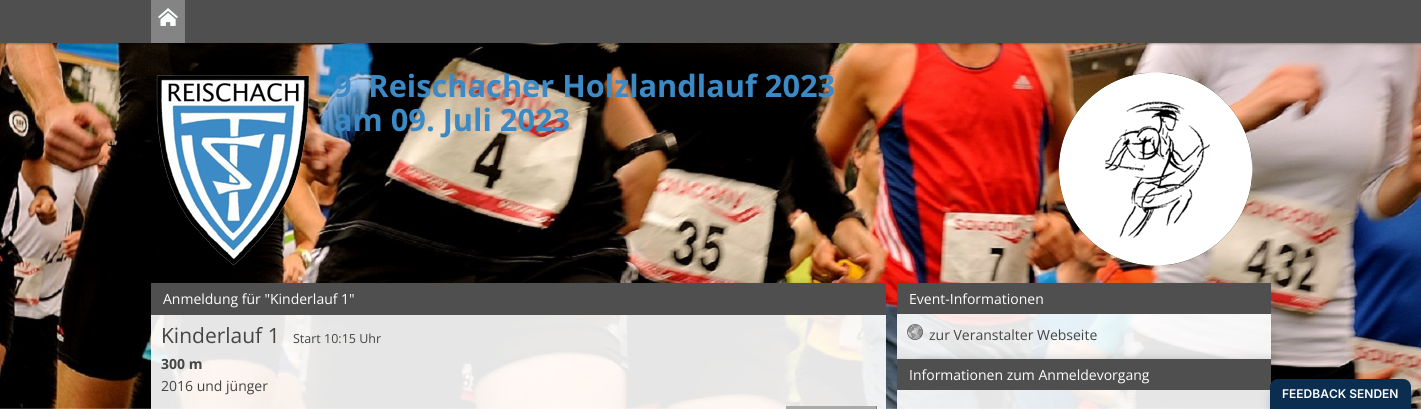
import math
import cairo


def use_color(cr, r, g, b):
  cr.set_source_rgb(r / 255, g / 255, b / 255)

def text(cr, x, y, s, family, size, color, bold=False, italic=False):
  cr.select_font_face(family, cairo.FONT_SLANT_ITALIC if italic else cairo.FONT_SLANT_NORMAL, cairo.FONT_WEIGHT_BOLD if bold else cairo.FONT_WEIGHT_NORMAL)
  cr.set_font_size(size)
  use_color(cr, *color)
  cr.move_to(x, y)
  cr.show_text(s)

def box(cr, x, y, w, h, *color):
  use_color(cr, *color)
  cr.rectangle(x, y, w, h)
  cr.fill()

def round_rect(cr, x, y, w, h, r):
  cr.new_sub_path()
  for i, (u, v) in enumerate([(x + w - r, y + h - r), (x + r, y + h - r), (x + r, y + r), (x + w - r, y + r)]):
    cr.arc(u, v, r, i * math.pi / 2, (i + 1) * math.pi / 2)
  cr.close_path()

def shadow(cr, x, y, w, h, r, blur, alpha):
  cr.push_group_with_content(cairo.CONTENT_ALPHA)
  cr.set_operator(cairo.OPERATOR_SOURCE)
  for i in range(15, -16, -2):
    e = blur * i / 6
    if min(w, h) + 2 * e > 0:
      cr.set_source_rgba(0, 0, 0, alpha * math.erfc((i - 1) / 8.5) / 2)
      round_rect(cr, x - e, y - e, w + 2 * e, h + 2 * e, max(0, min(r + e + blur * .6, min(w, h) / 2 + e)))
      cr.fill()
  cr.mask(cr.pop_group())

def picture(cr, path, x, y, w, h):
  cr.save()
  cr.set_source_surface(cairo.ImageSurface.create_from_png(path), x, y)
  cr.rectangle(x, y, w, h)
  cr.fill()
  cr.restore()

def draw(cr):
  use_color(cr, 255, 255, 255)
  cr.paint()
  picture(cr, "img_01.png", 0, 43, 1421, 366)
  use_color(cr, 0, 0, 0)
  shadow(cr, 0, 1, 1421, 43, 0, 1, 0.3)
  box(cr, 0, 0, 1421, 43, 79, 79, 79)
  box(cr, 151, 0, 34, 43, 132, 132, 132)
  picture(cr, "img_02.png", 158, 8, 20, 18)
  picture(cr, "img_03.png", 156, 75, 154, 190)
  picture(cr, "img_04.png", 1058, 72, 195, 194)
  cr.save()
  cr.set_fill_rule(cairo.FILL_RULE_EVEN_ODD)
  cr.new_path()
  cr.move_to(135, 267)
  cr.line_to(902, 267)
  cr.line_to(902, 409)
  cr.line_to(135, 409)
  cr.close_path()
  cr.move_to(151, 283)
  cr.line_to(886, 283)
  cr.line_to(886, 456)
  cr.line_to(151, 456)
  cr.close_path()
  cr.clip()
  use_color(cr, 10, 10, 10)
  shadow(cr, 151, 283, 735, 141, 0, 5, 0.2)
  cr.restore()
  cr.set_source_rgba(1, 1, 1, 0.9)
  cr.rectangle(151, 315, 735, 94)
  cr.fill()
  box(cr, 151, 283, 735, 32, 79, 79, 79)
  cr.set_source_rgba(1, 1, 1, 0.5)
  cr.rectangle(877, 406, 1, 3)
  cr.fill()
  box(cr, 876, 406, 1, 3, 128, 128, 128)
  box(cr, 786, 406, 90, 3, 170, 170, 170)
  cr.save()
  cr.set_fill_rule(cairo.FILL_RULE_EVEN_ODD)
  cr.new_path()
  cr.move_to(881, 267)
  cr.line_to(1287, 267)
  cr.line_to(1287, 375)
  cr.line_to(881, 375)
  cr.close_path()
  cr.move_to(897, 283)
  cr.line_to(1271, 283)
  cr.line_to(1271, 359)
  cr.line_to(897, 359)
  cr.close_path()
  cr.clip()
  use_color(cr, 10, 10, 10)
  shadow(cr, 897, 283, 374, 76, 0, 5, 0.2)
  cr.restore()
  cr.set_source_rgba(1, 1, 1, 0.9)
  cr.rectangle(897, 314, 374, 45)
  cr.fill()
  box(cr, 897, 283, 374, 31, 79, 79, 79)
  picture(cr, "img_05.png", 907, 324, 16, 16)
  cr.save()
  cr.set_fill_rule(cairo.FILL_RULE_EVEN_ODD)
  cr.new_path()
  cr.move_to(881, 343)
  cr.line_to(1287, 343)
  cr.line_to(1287, 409)
  cr.line_to(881, 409)
  cr.close_path()
  cr.move_to(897, 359)
  cr.line_to(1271, 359)
  cr.line_to(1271, 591)
  cr.line_to(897, 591)
  cr.close_path()
  cr.clip()
  use_color(cr, 10, 10, 10)
  shadow(cr, 897, 359, 374, 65, 0, 5, 0.2)
  cr.restore()
  cr.set_source_rgba(1, 1, 1, 0.9)
  cr.rectangle(897, 390, 373, 19)
  cr.fill()
  box(cr, 897, 359, 374, 31, 79, 79, 79)
  use_color(cr, 0, 57, 128)
  shadow(cr, 1270, 389, 141, 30, 8, 5, 0.2)
  use_color(cr, 10, 45, 80)
  cr.new_path()
  cr.move_to(1278, 379)
  cr.line_to(1403, 379)
  cr.curve_to(1407.5, 379, 1411, 382.5, 1411, 387)
  cr.line_to(1411, 409)
  cr.line_to(1270, 409)
  cr.line_to(1270, 387)
  cr.curve_to(1270, 382.5, 1273.5, 379, 1278, 379)
  cr.close_path()
  cr.fill()
  text(cr, 334, 97, "9. Reischacher Holzlandlauf 2023", "Open Sans", 30.75, (59, 138, 197), bold=True)
  text(cr, 334, 131, "am 09. Juli 2023", "Open Sans", 30.75, (59, 138, 197), bold=True)
  text(cr, 163, 304, "Anmeldung für \"Kinderlauf 1\"", "Open Sans", 14, (255, 255, 255))
  text(cr, 161, 343, "Kinderlauf 1", "Open Sans", 21, (68, 68, 68))
  text(cr, 293, 343, "Start 10:15 Uhr", "Open Sans", 12.5, (68, 68, 68))
  text(cr, 161, 369, "300 m", "Open Sans", 14, (68, 68, 68), bold=True)
  text(cr, 161, 391, "2016 und jünger", "Open Sans", 14, (68, 68, 68))
  text(cr, 909, 304, "Event-Informationen", "Open Sans", 14, (255, 255, 255))
  text(cr, 929, 340, "zur Veranstalter Webseite", "Open Sans", 14, (68, 68, 68))
  text(cr, 909, 380, "Informationen zum Anmeldevorgang", "Open Sans", 14, (255, 255, 255))
  text(cr, 1282, 398, "FEEDBACK SENDEN", "Inter SemiBold", 12, (255, 255, 255))


surface = cairo.ImageSurface(cairo.FORMAT_RGB24, 1421, 409)
cr = cairo.Context(surface)
options = cairo.FontOptions()
options.set_hint_metrics(cairo.HINT_METRICS_OFF)
options.set_hint_style(cairo.HINT_STYLE_NONE)
cr.set_font_options(options)
cr.set_miter_limit(4)
draw(cr)
surface.write_to_png("out.png")
